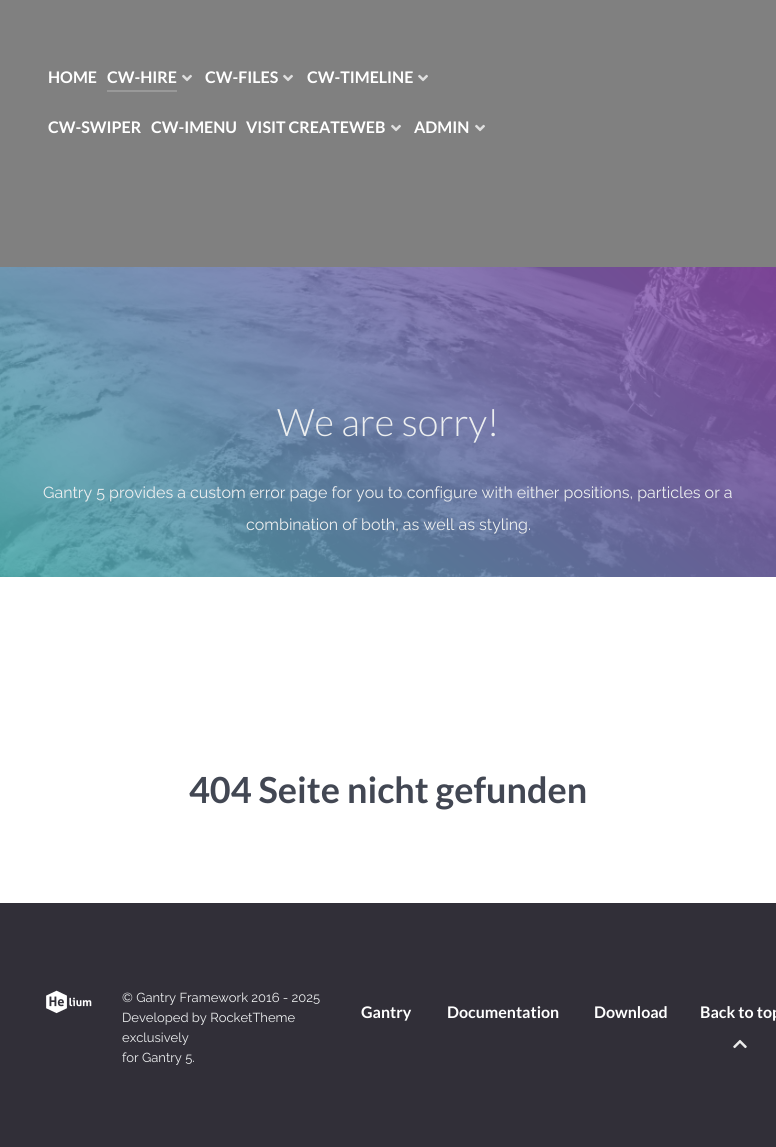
import math
import cairo


def use_color(cr, r, g, b):
  cr.set_source_rgb(r / 255, g / 255, b / 255)

def text(cr, x, y, s, family, size, color, bold=False, italic=False):
  cr.select_font_face(family, cairo.FONT_SLANT_ITALIC if italic else cairo.FONT_SLANT_NORMAL, cairo.FONT_WEIGHT_BOLD if bold else cairo.FONT_WEIGHT_NORMAL)
  cr.set_font_size(size)
  use_color(cr, *color)
  cr.move_to(x, y)
  cr.show_text(s)

def box(cr, x, y, w, h, *color):
  use_color(cr, *color)
  cr.rectangle(x, y, w, h)
  cr.fill()

def picture(cr, path, x, y, w, h):
  cr.save()
  cr.set_source_surface(cairo.ImageSurface.create_from_png(path), x, y)
  cr.rectangle(x, y, w, h)
  cr.fill()
  cr.restore()

def draw(cr):
  use_color(cr, 255, 255, 255)
  cr.paint()
  box(cr, 0, 0, 776, 267, 128, 128, 128)
  box(cr, 107, 90, 70, 2, 153, 153, 153)
  picture(cr, "img_01.png", 182, 74, 10, 8)
  picture(cr, "img_01.png", 283, 74, 10, 8)
  picture(cr, "img_01.png", 418, 74, 10, 8)
  picture(cr, "img_01.png", 391, 124, 10, 8)
  picture(cr, "img_01.png", 475, 124, 10, 8)
  picture(cr, "img_02.png", 0, 267, 776, 310)
  box(cr, 0, 903, 776, 244, 49, 47, 56)
  picture(cr, "img_03.png", 46, 990, 46, 24)
  picture(cr, "img_04.png", 733, 1039, 14, 10)
  text(cr, 48, 83, "HOME", "Lato", 16, (255, 255, 255), bold=True)
  text(cr, 107, 83, "CW-HIRE", "Lato", 16, (255, 255, 255), bold=True)
  text(cr, 205, 83, "CW-FILES", "Lato", 16, (255, 255, 255), bold=True)
  text(cr, 307, 83, "CW-TIMELINE", "Lato", 16, (255, 255, 255), bold=True)
  text(cr, 48, 133, "CW-SWIPER", "Lato", 16, (255, 255, 255), bold=True)
  text(cr, 151, 133, "CW-IMENU", "Lato", 16, (255, 255, 255), bold=True)
  text(cr, 246, 133, "VISIT CREATEWEB", "Lato", 16, (255, 255, 255), bold=True)
  text(cr, 414, 133, "ADMIN", "Lato", 16, (255, 255, 255), bold=True)
  text(cr, 277, 436, "We are sorry!", "Lato Light", 38, (236, 238, 239))
  text(cr, 43, 498, "Gantry 5 provides a custom error page for you to configure with either positions, particles or a", "Raleway", 16, (236, 238, 239))
  text(cr, 246, 530, "combination of both, as well as styling.", "Raleway", 16, (236, 238, 239))
  text(cr, 189, 803, "404 Seite nicht gefunden", "Lato", 36, (66, 71, 83), bold=True)
  text(cr, 122, 1002, "© Gantry Framework 2016 - 2025", "Raleway", 13, (236, 238, 239))
  text(cr, 122, 1022, "Developed by RocketTheme", "Raleway", 13, (236, 238, 239))
  text(cr, 122, 1042, "exclusively", "Raleway", 13, (236, 238, 239))
  text(cr, 122, 1062, "for Gantry 5.", "Raleway", 13, (236, 238, 239))
  text(cr, 361, 1018, "Gantry", "Lato", 16, (255, 255, 255), bold=True)
  text(cr, 447, 1018, "Documentation", "Lato", 16, (255, 255, 255), bold=True)
  text(cr, 594, 1018, "Download", "Lato", 16, (255, 255, 255), bold=True)
  text(cr, 700, 1018, "Back to top", "Lato", 16, (255, 255, 255), bold=True)


surface = cairo.ImageSurface(cairo.FORMAT_RGB24, 776, 1147)
cr = cairo.Context(surface)
options = cairo.FontOptions()
options.set_hint_metrics(cairo.HINT_METRICS_OFF)
options.set_hint_style(cairo.HINT_STYLE_NONE)
cr.set_font_options(options)
cr.set_miter_limit(4)
draw(cr)
surface.write_to_png("out.png")
